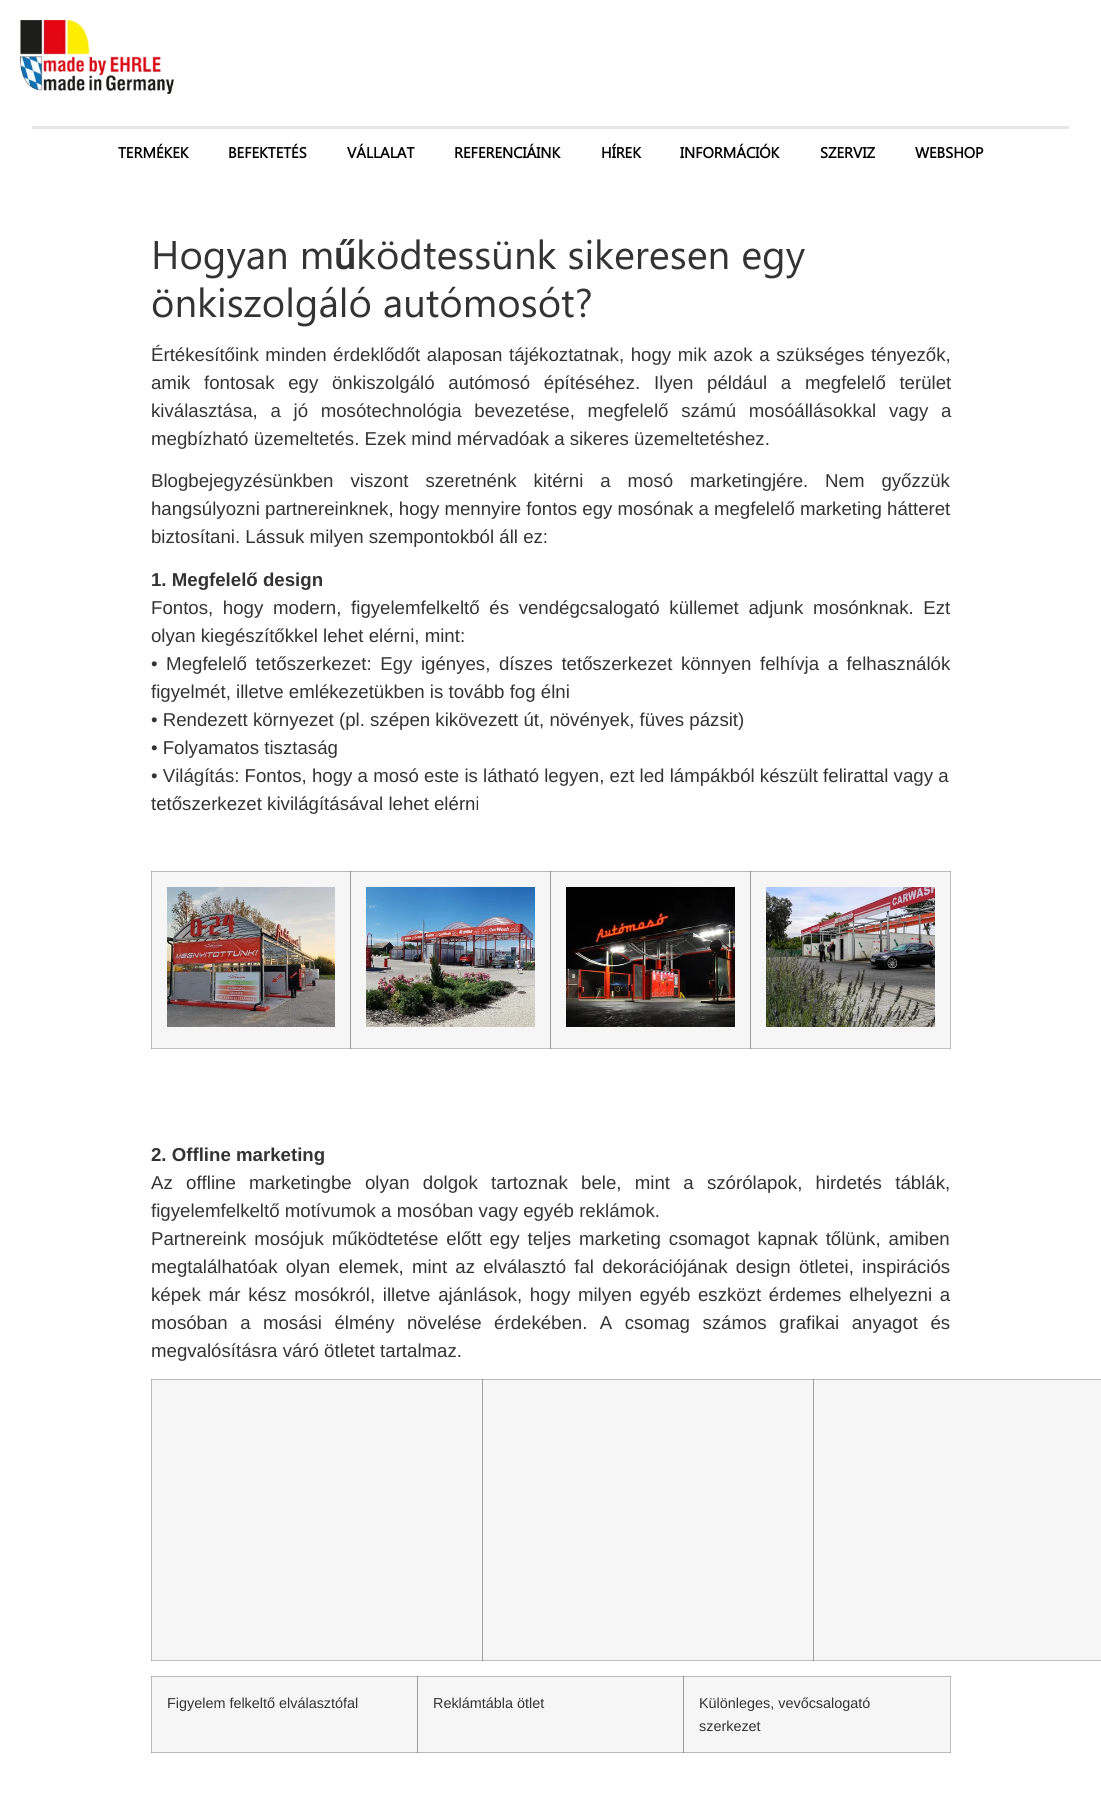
import math
import cairo


def use_color(cr, r, g, b):
  cr.set_source_rgb(r / 255, g / 255, b / 255)

def text(cr, x, y, s, family, size, color, bold=False, italic=False):
  cr.select_font_face(family, cairo.FONT_SLANT_ITALIC if italic else cairo.FONT_SLANT_NORMAL, cairo.FONT_WEIGHT_BOLD if bold else cairo.FONT_WEIGHT_NORMAL)
  cr.set_font_size(size)
  use_color(cr, *color)
  cr.move_to(x, y)
  cr.show_text(s)

def spaced_text(cr, x, y, s, letter, word):
  cr.move_to(x, y)
  for ch in s:
    cr.show_text(ch)
    cr.rel_move_to(letter + word * (ch == ' '), 0)

def box(cr, x, y, w, h, *color):
  use_color(cr, *color)
  cr.rectangle(x, y, w, h)
  cr.fill()

def picture(cr, path, x, y, w, h):
  cr.save()
  cr.set_source_surface(cairo.ImageSurface.create_from_png(path), x, y)
  cr.rectangle(x, y, w, h)
  cr.fill()
  cr.restore()

def draw(cr):
  use_color(cr, 255, 255, 255)
  cr.paint()
  box(cr, 950, 1676, 1, 77, 192, 192, 192)
  box(cr, 950, 1752, 1, 1, 160, 160, 160)
  box(cr, 950, 1676, 1, 1, 160, 160, 160)
  box(cr, 151, 1660, 950, 1, 192, 192, 192)
  box(cr, 151, 1660, 1, 1, 160, 160, 160)
  box(cr, 482, 1660, 1, 1, 136, 136, 136)
  box(cr, 151, 1048, 800, 1, 192, 192, 192)
  box(cr, 151, 1048, 1, 1, 160, 160, 160)
  box(cr, 350, 1048, 1, 1, 136, 136, 136)
  box(cr, 550, 1048, 1, 1, 136, 136, 136)
  box(cr, 750, 1048, 1, 1, 136, 136, 136)
  box(cr, 950, 871, 1, 178, 192, 192, 192)
  box(cr, 950, 1048, 1, 1, 160, 160, 160)
  box(cr, 950, 871, 1, 1, 160, 160, 160)
  picture(cr, "img_01.png", 20, 20, 154, 74)
  box(cr, 32, 126, 1037, 3, 230, 230, 230)
  box(cr, 152, 872, 198, 176, 246, 246, 246)
  box(cr, 151, 871, 1, 177, 187, 187, 187)
  box(cr, 151, 871, 599, 1, 187, 187, 187)
  box(cr, 151, 871, 1, 1, 158, 158, 158)
  box(cr, 350, 871, 1, 177, 158, 158, 158)
  box(cr, 350, 871, 1, 1, 136, 136, 136)
  picture(cr, "img_02.png", 167, 887, 168, 140)
  box(cr, 351, 872, 199, 176, 246, 246, 246)
  box(cr, 550, 871, 1, 177, 158, 158, 158)
  box(cr, 550, 871, 1, 1, 136, 136, 136)
  picture(cr, "img_03.png", 366, 887, 169, 140)
  box(cr, 551, 872, 199, 176, 246, 246, 246)
  picture(cr, "img_04.png", 566, 887, 169, 140)
  box(cr, 751, 872, 199, 176, 246, 246, 246)
  box(cr, 750, 871, 1, 177, 158, 158, 158)
  box(cr, 750, 871, 200, 1, 187, 187, 187)
  box(cr, 750, 871, 1, 1, 136, 136, 136)
  picture(cr, "img_05.png", 766, 887, 169, 140)
  box(cr, 152, 1380, 330, 280, 246, 246, 246)
  box(cr, 151, 1379, 1, 281, 187, 187, 187)
  box(cr, 151, 1379, 331, 1, 187, 187, 187)
  box(cr, 151, 1379, 1, 1, 158, 158, 158)
  box(cr, 483, 1380, 330, 280, 246, 246, 246)
  box(cr, 482, 1379, 1, 281, 158, 158, 158)
  box(cr, 482, 1379, 331, 1, 187, 187, 187)
  box(cr, 482, 1379, 1, 1, 136, 136, 136)
  box(cr, 814, 1380, 287, 280, 246, 246, 246)
  box(cr, 813, 1379, 1, 281, 158, 158, 158)
  box(cr, 813, 1379, 288, 1, 187, 187, 187)
  box(cr, 813, 1379, 1, 1, 136, 136, 136)
  box(cr, 813, 1660, 1, 1, 136, 136, 136)
  box(cr, 152, 1677, 265, 75, 246, 246, 246)
  box(cr, 151, 1676, 1, 77, 187, 187, 187)
  box(cr, 151, 1752, 266, 1, 187, 187, 187)
  box(cr, 151, 1752, 1, 1, 158, 158, 158)
  box(cr, 151, 1676, 266, 1, 187, 187, 187)
  box(cr, 151, 1676, 1, 1, 158, 158, 158)
  box(cr, 418, 1677, 265, 75, 246, 246, 246)
  box(cr, 417, 1676, 1, 77, 158, 158, 158)
  box(cr, 417, 1752, 533, 1, 187, 187, 187)
  box(cr, 417, 1752, 1, 1, 136, 136, 136)
  box(cr, 417, 1676, 533, 1, 187, 187, 187)
  box(cr, 417, 1676, 1, 1, 136, 136, 136)
  box(cr, 683, 1676, 1, 77, 158, 158, 158)
  box(cr, 683, 1752, 1, 1, 136, 136, 136)
  box(cr, 683, 1676, 1, 1, 136, 136, 136)
  box(cr, 684, 1677, 266, 75, 246, 246, 246)
  text(cr, 118, 158, "TERMÉKEK", "Segoe UI", 15, (0, 0, 0), bold=True)
  text(cr, 228, 158, "BEFEKTETÉS", "Segoe UI", 15, (0, 0, 0), bold=True)
  text(cr, 347, 158, "VÁLLALAT", "Segoe UI", 15, (0, 0, 0), bold=True)
  text(cr, 454, 158, "REFERENCIÁINK", "Segoe UI", 15, (0, 0, 0), bold=True)
  text(cr, 601, 158, "HÍREK", "Segoe UI", 15, (0, 0, 0), bold=True)
  text(cr, 680, 158, "INFORMÁCIÓK", "Segoe UI", 15, (0, 0, 0), bold=True)
  text(cr, 820, 158, "SZERVIZ", "Segoe UI", 15, (0, 0, 0), bold=True)
  text(cr, 915, 158, "WEBSHOP", "Segoe UI", 15, (0, 0, 0), bold=True)
  text(cr, 151, 269, "Hogyan m", "Segoe UI", 40, (51, 51, 51))
  text(cr, 334, 269, "ű", "Roboto Medium", 40, (51, 51, 51))
  text(cr, 356, 269, "ködtessünk sikeresen egy", "Segoe UI", 40, (51, 51, 51))
  text(cr, 151, 317, "önkiszolgáló autómosót?", "Segoe UI", 40, (51, 51, 51))
  cr.select_font_face("Liberation Sans")
  cr.set_font_size(18.65)
  spaced_text(cr, 151, 361, "Értékesítőink minden érdeklődőt alaposan tájékoztatnak, hogy mik azok a szükséges tényezők,", 0, 1.4)
  spaced_text(cr, 151, 389, "amik fontosak egy önkiszolgáló autómosó építéséhez. Ilyen például a megfelelő terület", 0, 8.5)
  spaced_text(cr, 151, 417, "kiválasztása, a jó mosótechnológia bevezetése, megfelelő számú mosóállásokkal vagy a", 0, 7.5)
  text(cr, 151, 445, "megbízható üzemeltetés. Ezek mind mérvadóak a sikeres üzemeltetéshez.", "Liberation Sans", 18.65, (51, 51, 51))
  spaced_text(cr, 151, 487, "Blogbejegyzésünkben viszont szeretnénk kitérni a mosó marketingjére. Nem győzzük", 0, 11.75)
  text(cr, 151, 515, "hangsúlyozni partnereinknek, hogy mennyire fontos egy mosónak a megfelelő marketing hátteret", "Liberation Sans", 18.65, (51, 51, 51))
  text(cr, 151, 543, "biztosítani. Lássuk milyen szempontokból áll ez:", "Liberation Sans", 18.65, (51, 51, 51))
  text(cr, 151, 586, "1. Megfelelő design", "Liberation Sans", 18.65, (51, 51, 51), bold=True)
  cr.select_font_face("Liberation Sans")
  spaced_text(cr, 151, 614, "Fontos, hogy modern, figyelemfelkeltő és vendégcsalogató küllemet adjunk mosónknak. Ezt", 0, 4.5)
  text(cr, 151, 642, "olyan kiegészítőkkel lehet elérni, mint:", "Liberation Sans", 18.65, (51, 51, 51))
  spaced_text(cr, 151, 670, "• Megfelelő tetőszerkezet: Egy igényes, díszes tetőszerkezet könnyen felhívja a felhasználók", 0, 3.4)
  text(cr, 151, 698, "figyelmét, illetve emlékezetükben is tovább fog élni", "Liberation Sans", 18.65, (51, 51, 51))
  text(cr, 151, 726, "• Rendezett környezet (pl. szépen kikövezett út, növények, füves pázsit)", "Liberation Sans", 18.65, (51, 51, 51))
  text(cr, 151, 754, "• Folyamatos tisztaság", "Liberation Sans", 18.65, (51, 51, 51))
  text(cr, 151, 782, "• Világítás: Fontos, hogy a mosó este is látható legyen, ezt led lámpákból készült felirattal vagy a", "Liberation Sans", 18.65, (51, 51, 51))
  text(cr, 151, 810, "tetőszerkezet kivilágításával lehet elérni", "Liberation Sans", 18.65, (51, 51, 51))
  text(cr, 151, 1161, "2. Offline marketing", "Liberation Sans", 18.65, (51, 51, 51), bold=True)
  cr.select_font_face("Liberation Sans")
  spaced_text(cr, 151, 1189, "Az offline marketingbe olyan dolgok tartoznak bele, mint a szórólapok, hirdetés táblák,", 0, 8.1)
  text(cr, 151, 1217, "figyelemfelkeltő motívumok a mosóban vagy egyéb reklámok.", "Liberation Sans", 18.65, (51, 51, 51))
  spaced_text(cr, 151, 1245, "Partnereink mosójuk működtetése előtt egy teljes marketing csomagot kapnak tőlünk, amiben", 0, 2.75)
  spaced_text(cr, 151, 1273, "megtalálhatóak olyan elemek, mint az elválasztó fal dekorációjának design ötletei, inspirációs", 0, 3)
  spaced_text(cr, 151, 1301, "képek már kész mosókról, illetve ajánlások, hogy milyen egyéb eszközt érdemes elhelyezni a", 0, 2.5)
  spaced_text(cr, 151, 1329, "mosóban a mosási élmény növelése érdekében. A csomag számos grafikai anyagot és", 0, 7.25)
  text(cr, 151, 1357, "megvalósításra váró ötletet tartalmaz.", "Liberation Sans", 18.65, (51, 51, 51))
  text(cr, 167, 1708, "Figyelem felkeltő elválasztófal", "Liberation Sans", 14.4, (51, 51, 51))
  text(cr, 433, 1708, "Reklámtábla ötlet", "Liberation Sans", 14.4, (51, 51, 51))
  text(cr, 699, 1708, "Különleges, vevőcsalogató", "Liberation Sans", 14.4, (51, 51, 51))
  text(cr, 699, 1731, "szerkezet", "Liberation Sans", 14.4, (51, 51, 51))


surface = cairo.ImageSurface(cairo.FORMAT_RGB24, 1101, 1811)
cr = cairo.Context(surface)
options = cairo.FontOptions()
options.set_hint_metrics(cairo.HINT_METRICS_OFF)
options.set_hint_style(cairo.HINT_STYLE_NONE)
cr.set_font_options(options)
cr.set_miter_limit(4)
draw(cr)
surface.write_to_png("out.png")
